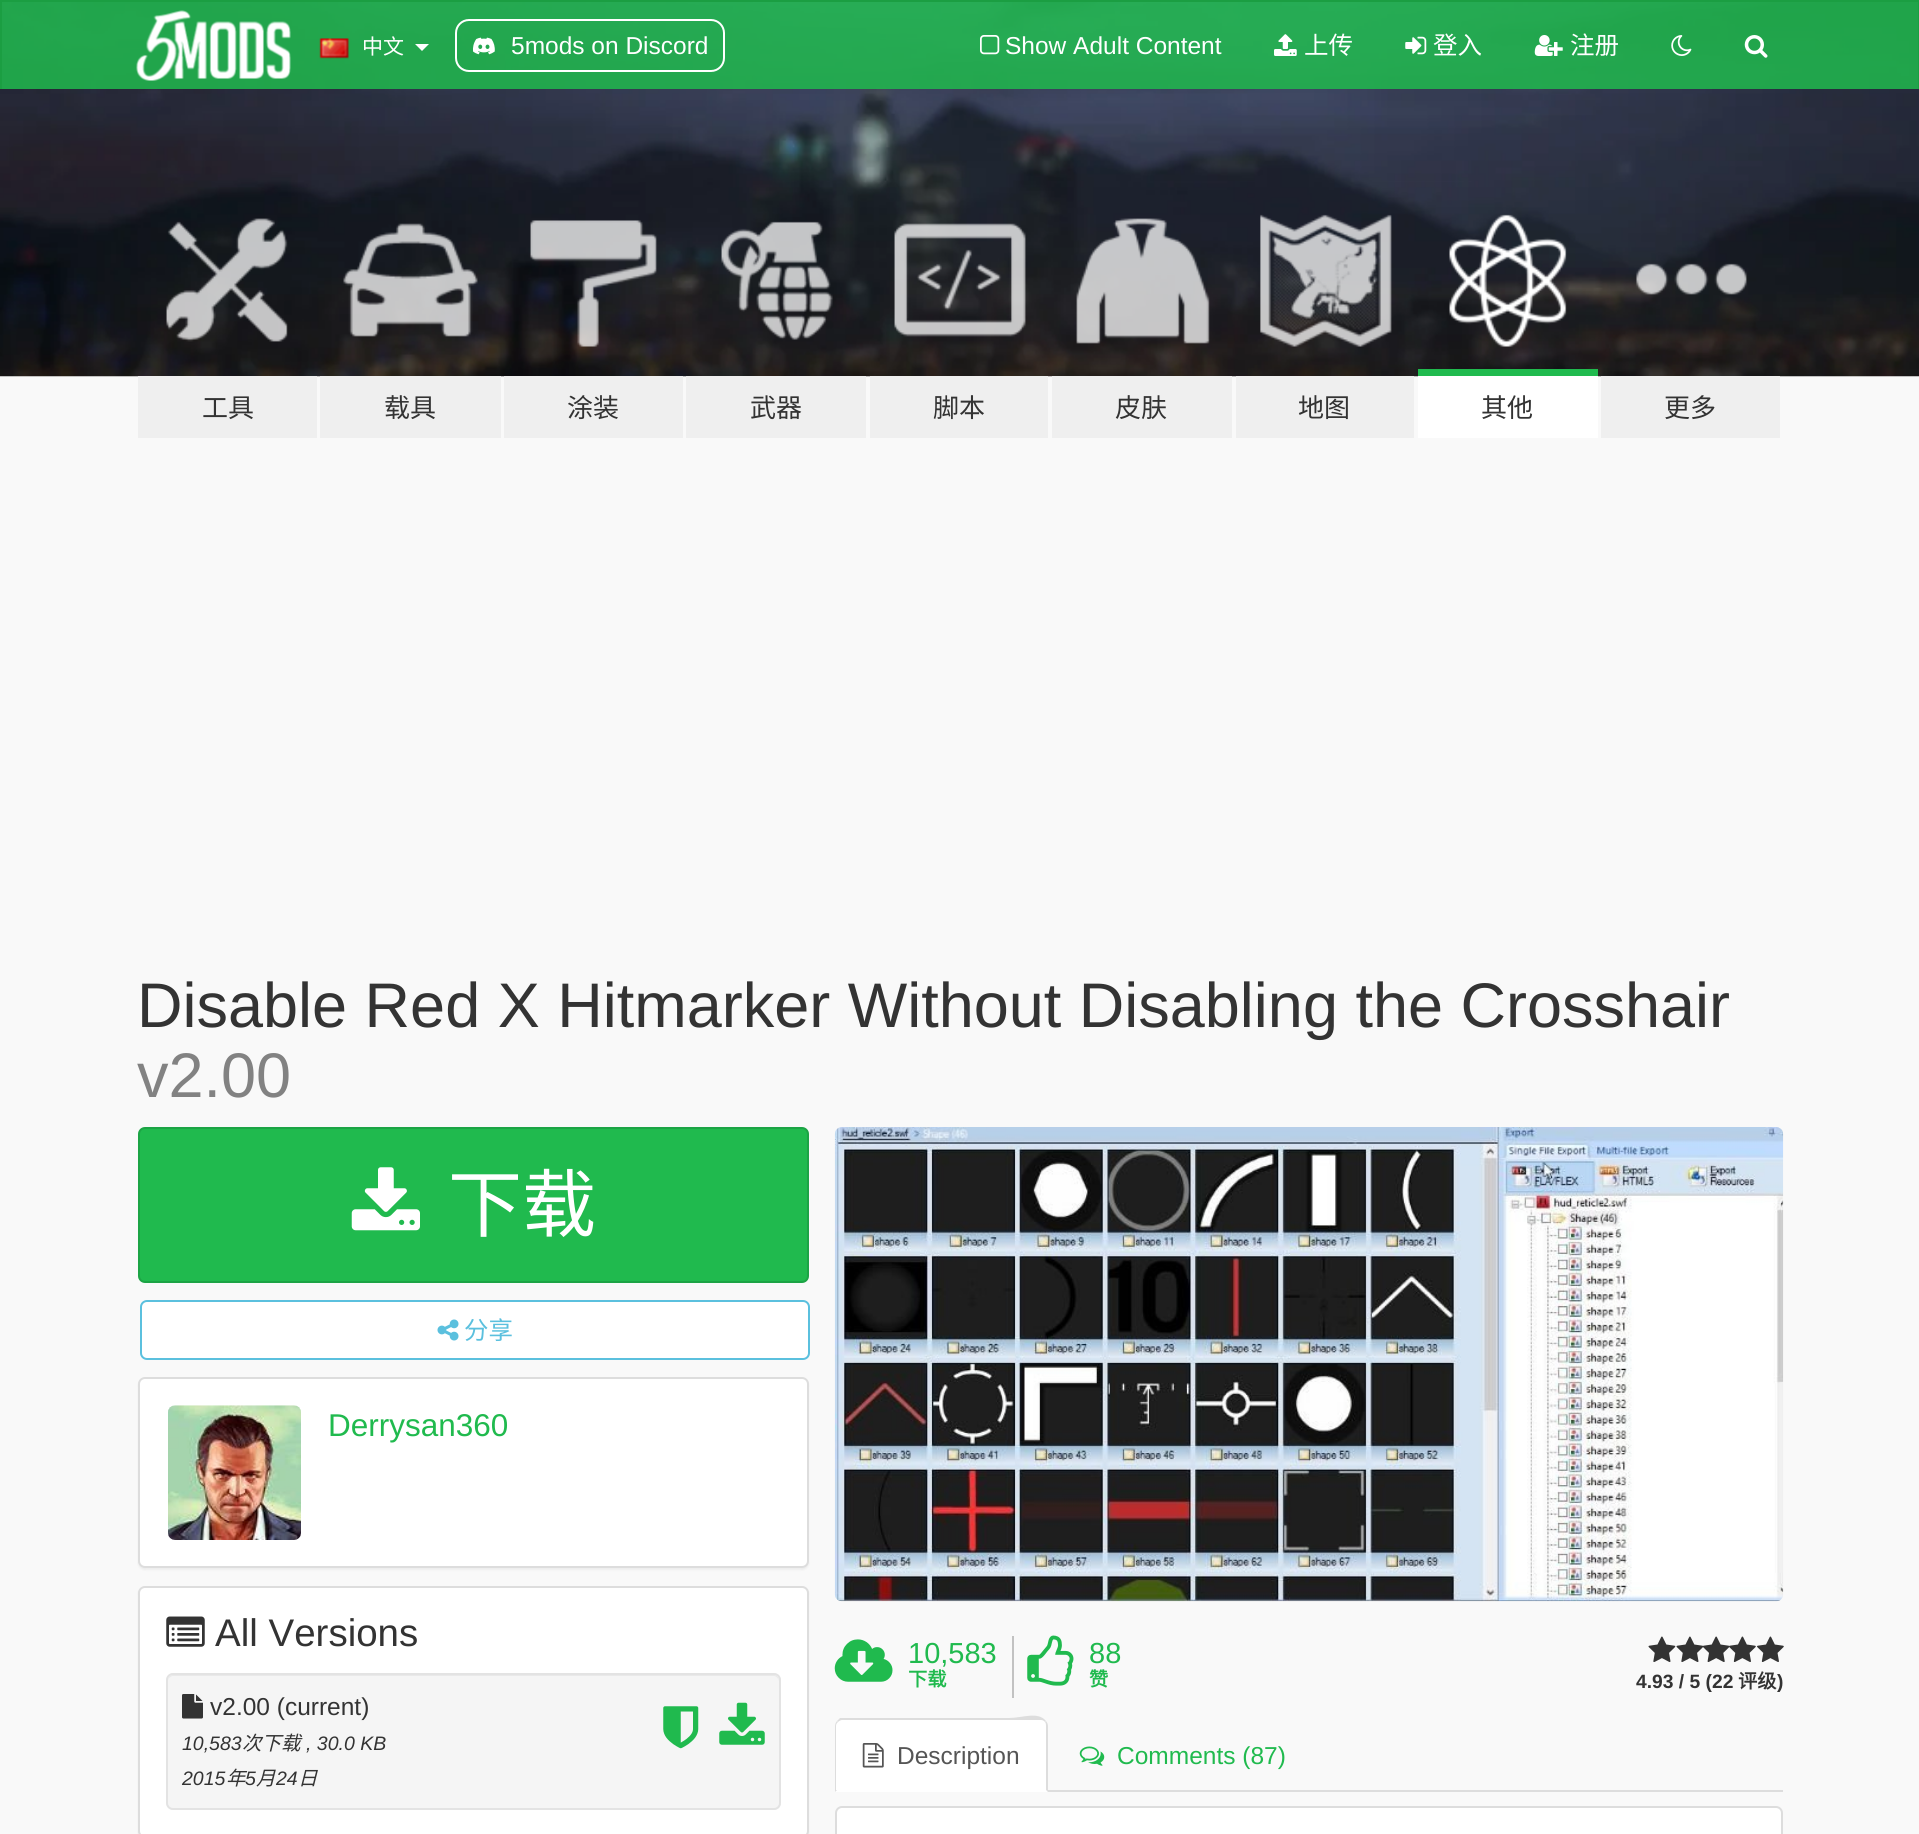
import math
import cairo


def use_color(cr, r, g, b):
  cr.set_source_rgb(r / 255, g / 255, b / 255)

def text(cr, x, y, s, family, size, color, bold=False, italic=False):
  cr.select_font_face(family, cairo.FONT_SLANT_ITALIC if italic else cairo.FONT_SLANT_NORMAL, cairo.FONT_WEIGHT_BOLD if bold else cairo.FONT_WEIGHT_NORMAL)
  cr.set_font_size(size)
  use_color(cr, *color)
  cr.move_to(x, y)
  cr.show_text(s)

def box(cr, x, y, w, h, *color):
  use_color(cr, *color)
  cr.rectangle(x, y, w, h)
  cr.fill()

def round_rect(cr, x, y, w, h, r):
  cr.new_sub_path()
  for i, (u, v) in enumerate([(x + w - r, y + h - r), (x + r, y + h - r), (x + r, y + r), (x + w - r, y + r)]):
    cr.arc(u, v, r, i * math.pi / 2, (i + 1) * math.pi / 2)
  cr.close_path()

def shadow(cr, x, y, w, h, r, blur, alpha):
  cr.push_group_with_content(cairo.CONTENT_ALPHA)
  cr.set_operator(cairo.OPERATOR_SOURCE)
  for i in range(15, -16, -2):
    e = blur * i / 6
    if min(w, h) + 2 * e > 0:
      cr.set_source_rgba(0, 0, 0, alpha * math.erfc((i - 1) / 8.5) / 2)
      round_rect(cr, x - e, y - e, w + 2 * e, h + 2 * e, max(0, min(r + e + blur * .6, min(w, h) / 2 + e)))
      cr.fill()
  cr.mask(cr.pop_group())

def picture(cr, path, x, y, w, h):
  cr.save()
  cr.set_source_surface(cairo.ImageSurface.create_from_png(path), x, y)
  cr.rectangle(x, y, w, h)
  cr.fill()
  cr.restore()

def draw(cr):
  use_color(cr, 249, 249, 249)
  cr.paint()
  picture(cr, "img_10.png", 0, 2, 1919, 375)
  cr.set_source_rgba(0.125, 0.729, 0.306, 0.85)
  cr.rectangle(2, 2, 1916, 87)
  cr.fill()
  box(cr, 0, 0, 1919, 2, 27, 158, 66)
  box(cr, 1918, 0, 1, 89, 27, 158, 66)
  box(cr, 0, 0, 2, 89, 27, 158, 66)
  picture(cr, "img_01.png", 136, 10, 155, 71)
  picture(cr, "img_02.png", 319, 38, 30, 21)
  use_color(cr, 255, 255, 255)
  cr.new_path()
  cr.move_to(415, 44)
  cr.line_to(429, 44)
  cr.line_to(422, 51)
  cr.close_path()
  cr.fill()
  round_rect(cr, 456, 20, 268, 51, 13)
  cr.stroke()
  picture(cr, "img_03.png", 473, 37, 22, 18)
  picture(cr, "img_04.png", 980, 35, 20, 20)
  picture(cr, "img_05.png", 1274, 34, 23, 22)
  picture(cr, "img_06.png", 1405, 36, 22, 19)
  picture(cr, "img_07.png", 1534, 35, 29, 21)
  picture(cr, "img_08.png", 1671, 35, 21, 21)
  picture(cr, "img_09.png", 1744, 35, 24, 23)
  picture(cr, "img_11.png", 166, 218, 122, 124)
  box(cr, 138, 376, 179, 62, 239, 239, 239)
  picture(cr, "img_12.png", 343, 223, 135, 114)
  box(cr, 320, 376, 181, 62, 239, 239, 239)
  picture(cr, "img_13.png", 530, 220, 127, 127)
  box(cr, 504, 376, 179, 62, 239, 239, 239)
  picture(cr, "img_14.png", 721, 221, 112, 119)
  box(cr, 686, 376, 180, 62, 239, 239, 239)
  picture(cr, "img_15.png", 894, 223, 132, 114)
  box(cr, 870, 376, 178, 62, 239, 239, 239)
  picture(cr, "img_16.png", 1076, 218, 134, 126)
  box(cr, 1052, 376, 180, 62, 239, 239, 239)
  picture(cr, "img_17.png", 1260, 214, 132, 133)
  box(cr, 1236, 376, 178, 62, 239, 239, 239)
  picture(cr, "img_18.png", 1449, 214, 118, 133)
  box(cr, 1418, 369, 180, 7, 32, 186, 78)
  box(cr, 1418, 376, 180, 62, 255, 255, 255)
  picture(cr, "img_19.png", 1636, 263, 111, 32)
  box(cr, 1601, 376, 179, 62, 239, 239, 239)
  use_color(cr, 32, 186, 78)
  round_rect(cr, 139, 1128, 669, 154, 6)
  cr.fill_preserve()
  use_color(cr, 28, 164, 69)
  cr.stroke()
  picture(cr, "img_20.png", 351, 1167, 69, 64)
  use_color(cr, 255, 255, 255)
  round_rect(cr, 141, 1301, 668, 58, 6)
  cr.fill_preserve()
  use_color(cr, 91, 192, 222)
  cr.stroke()
  picture(cr, "img_21.png", 437, 1319, 22, 22)
  use_color(cr, 0, 0, 0)
  shadow(cr, 138, 1379, 671, 191, 7, 1, 0.05)
  use_color(cr, 255, 255, 255)
  round_rect(cr, 139, 1378, 669, 189, 6)
  cr.fill_preserve()
  use_color(cr, 221, 221, 221)
  cr.stroke()
  picture(cr, "img_22.png", 168, 1405, 133, 135)
  use_color(cr, 0, 0, 0)
  shadow(cr, 138, 1587, 671, 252, 7, 1, 0.05)
  use_color(cr, 255, 255, 255)
  round_rect(cr, 139, 1587, 669, 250, 6)
  cr.fill_preserve()
  use_color(cr, 221, 221, 221)
  cr.stroke()
  picture(cr, "img_23.png", 166, 1616, 39, 31)
  use_color(cr, 245, 245, 245)
  round_rect(cr, 166, 1673, 615, 137, 7)
  cr.fill()
  use_color(cr, 233, 233, 233)
  cr.new_path()
  cr.move_to(173, 1676)
  cr.line_to(774, 1676)
  cr.curve_to(776, 1676, 779, 1679, 779, 1682)
  cr.curve_to(779, 1679, 778, 1675, 774, 1675)
  cr.line_to(173, 1675)
  cr.curve_to(169, 1675, 168, 1679, 168, 1682)
  cr.curve_to(168, 1679, 170, 1676, 173, 1676)
  cr.close_path()
  cr.fill()
  round_rect(cr, 167, 1674, 613, 135, 6)
  use_color(cr, 227, 227, 227)
  cr.stroke()
  picture(cr, "img_24.png", 182, 1694, 21, 25)
  picture(cr, "img_25.png", 663, 1706, 36, 43)
  picture(cr, "img_26.png", 719, 1702, 46, 43)
  picture(cr, "img_27.png", 834, 1127, 950, 475)
  picture(cr, "img_28.png", 834, 1639, 59, 43)
  box(cr, 1012, 1636, 2, 62, 194, 194, 194)
  picture(cr, "img_29.png", 1027, 1635, 47, 51)
  picture(cr, "img_30.png", 1648, 1636, 28, 26)
  picture(cr, "img_31.png", 1676, 1636, 27, 26)
  picture(cr, "img_32.png", 1703, 1636, 27, 26)
  picture(cr, "img_33.png", 1729, 1636, 27, 26)
  picture(cr, "img_34.png", 1757, 1636, 27, 26)
  box(cr, 1048, 1790, 735, 2, 221, 221, 221)
  use_color(cr, 255, 255, 255)
  cr.new_path()
  cr.move_to(842, 1719)
  cr.line_to(1041, 1719)
  cr.curve_to(1045, 1719, 1048, 1722, 1048, 1726)
  cr.line_to(1048, 1792)
  cr.line_to(835, 1792)
  cr.line_to(835, 1726)
  cr.curve_to(835, 1722, 838, 1719, 842, 1719)
  cr.close_path()
  cr.fill()
  use_color(cr, 221, 221, 221)
  cr.new_path()
  cr.move_to(842, 1720)
  cr.curve_to(841, 1720, 839, 1721, 838, 1722)
  cr.line_to(837, 1721)
  cr.line_to(840, 1718)
  cr.line_to(1009, 1718)
  cr.curve_to(1022, 1718, 1038, 1711, 1046, 1721)
  cr.line_to(1045, 1722)
  cr.curve_to(1044, 1721, 1043, 1720, 1041, 1720)
  cr.close_path()
  cr.fill()
  cr.new_path()
  cr.move_to(1046, 1721)
  cr.curve_to(1047, 1722, 1048, 1724, 1048, 1726)
  cr.line_to(1048, 1792)
  cr.line_to(1046, 1790)
  cr.line_to(1046, 1726)
  cr.curve_to(1046, 1725, 1046, 1723, 1045, 1722)
  cr.close_path()
  cr.fill()
  cr.new_path()
  cr.move_to(835, 1792)
  cr.line_to(835, 1726)
  cr.curve_to(835, 1724, 836, 1722, 837, 1721)
  cr.line_to(838, 1722)
  cr.curve_to(837, 1723, 836, 1724, 836, 1726)
  cr.line_to(836, 1790)
  cr.line_to(837, 1790)
  cr.close_path()
  cr.fill()
  picture(cr, "img_35.png", 862, 1743, 22, 25)
  picture(cr, "img_36.png", 1079, 1746, 26, 20)
  use_color(cr, 255, 255, 255)
  round_rect(cr, 836, 1807, 946, 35, 6)
  cr.fill_preserve()
  use_color(cr, 221, 221, 221)
  cr.stroke()
  text(cr, 362, 54, "中文", "Noto Sans CJK SC", 21, (255, 255, 255))
  text(cr, 511, 54, "5mods on Discord", "Liberation Sans", 24.5, (255, 255, 255))
  text(cr, 1005, 54, "Show Adult Content", "Liberation Sans", 24.5, (255, 255, 255))
  text(cr, 1304, 54, "上传", "Noto Sans CJK SC", 24.5, (255, 255, 255))
  text(cr, 1433, 54, "登入", "Noto Sans CJK SC", 24.5, (255, 255, 255))
  text(cr, 1570, 54, "注册", "Noto Sans CJK SC", 24.5, (255, 255, 255))
  text(cr, 202, 417, "工具", "Noto Sans CJK SC", 26, (51, 51, 51))
  text(cr, 384, 417, "载具", "Noto Sans CJK SC", 26, (51, 51, 51))
  text(cr, 567, 417, "涂装", "Noto Sans CJK SC", 26, (51, 51, 51))
  text(cr, 750, 417, "武器", "Noto Sans CJK SC", 26, (51, 51, 51))
  text(cr, 933, 417, "脚本", "Noto Sans CJK SC", 26, (51, 51, 51))
  text(cr, 1115, 417, "皮肤", "Noto Sans CJK SC", 26, (51, 51, 51))
  text(cr, 1298, 417, "地图", "Noto Sans CJK SC", 26, (51, 51, 51))
  text(cr, 1481, 417, "其他", "Noto Sans CJK SC", 26, (51, 51, 51))
  text(cr, 1664, 417, "更多", "Noto Sans CJK SC", 26, (51, 51, 51))
  text(cr, 137, 1027, "Disable Red X Hitmarker Without Disabling the Crosshair", "Liberation Sans", 63, (51, 51, 51))
  text(cr, 137, 1097, "v2.00", "Liberation Sans", 63, (130, 130, 130))
  text(cr, 448, 1231, "下载", "Noto Sans CJK SC", 74, (255, 255, 255))
  text(cr, 464, 1339, "分享", "Noto Sans CJK SC", 24.5, (91, 192, 222))
  text(cr, 328, 1436, "Derrysan360", "Liberation Sans", 31.5, (32, 186, 78))
  text(cr, 215, 1646, "All Versions", "Liberation Sans", 38.5, (51, 51, 51))
  text(cr, 210, 1715, "v2.00 (current)", "Liberation Sans", 24.5, (51, 51, 51))
  text(cr, 182, 1750, "10,583", "Liberation Sans", 19.5, (51, 51, 51), italic=True)
  text(cr, 242, 1750, "次下载", "Noto Sans CJK SC", 19.5, (51, 51, 51), italic=True)
  text(cr, 306, 1750, ", 30.0 KB", "Liberation Sans", 19.5, (51, 51, 51), italic=True)
  text(cr, 182, 1785, "2015", "Liberation Sans", 19.5, (51, 51, 51), italic=True)
  text(cr, 226, 1785, "年", "Noto Sans CJK SC", 19.5, (51, 51, 51), italic=True)
  text(cr, 245, 1785, "5", "Liberation Sans", 19.5, (51, 51, 51), italic=True)
  text(cr, 256, 1785, "月", "Noto Sans CJK SC", 19.5, (51, 51, 51), italic=True)
  text(cr, 276, 1785, "24", "Liberation Sans", 19.5, (51, 51, 51), italic=True)
  text(cr, 298, 1785, "日", "Noto Sans CJK SC", 19.5, (51, 51, 51), italic=True)
  text(cr, 908, 1663, "10,583", "Liberation Sans", 29, (32, 186, 78))
  text(cr, 908, 1686, "下载", "Noto Sans CJK SC", 19.25, (32, 186, 78), bold=True)
  text(cr, 1089, 1663, "88", "Liberation Sans", 29, (32, 186, 78))
  text(cr, 1089, 1686, "赞", "Noto Sans CJK SC", 19.25, (32, 186, 78), bold=True)
  text(cr, 1636, 1688, "4.93 / 5 (22", "Liberation Sans", 19.25, (51, 51, 51), bold=True)
  text(cr, 1738, 1688, "评级", "Noto Sans CJK SC", 19.25, (51, 51, 51), bold=True)
  text(cr, 1777, 1688, ")", "Liberation Sans", 19.25, (51, 51, 51), bold=True)
  text(cr, 897, 1764, "Description", "Liberation Sans", 24.5, (85, 85, 85))
  text(cr, 1117, 1764, "Comments (87)", "Liberation Sans", 24.5, (32, 186, 78))


surface = cairo.ImageSurface(cairo.FORMAT_RGB24, 1919, 1834)
cr = cairo.Context(surface)
options = cairo.FontOptions()
options.set_hint_metrics(cairo.HINT_METRICS_OFF)
options.set_hint_style(cairo.HINT_STYLE_NONE)
cr.set_font_options(options)
cr.set_miter_limit(4)
draw(cr)
surface.write_to_png("out.png")
